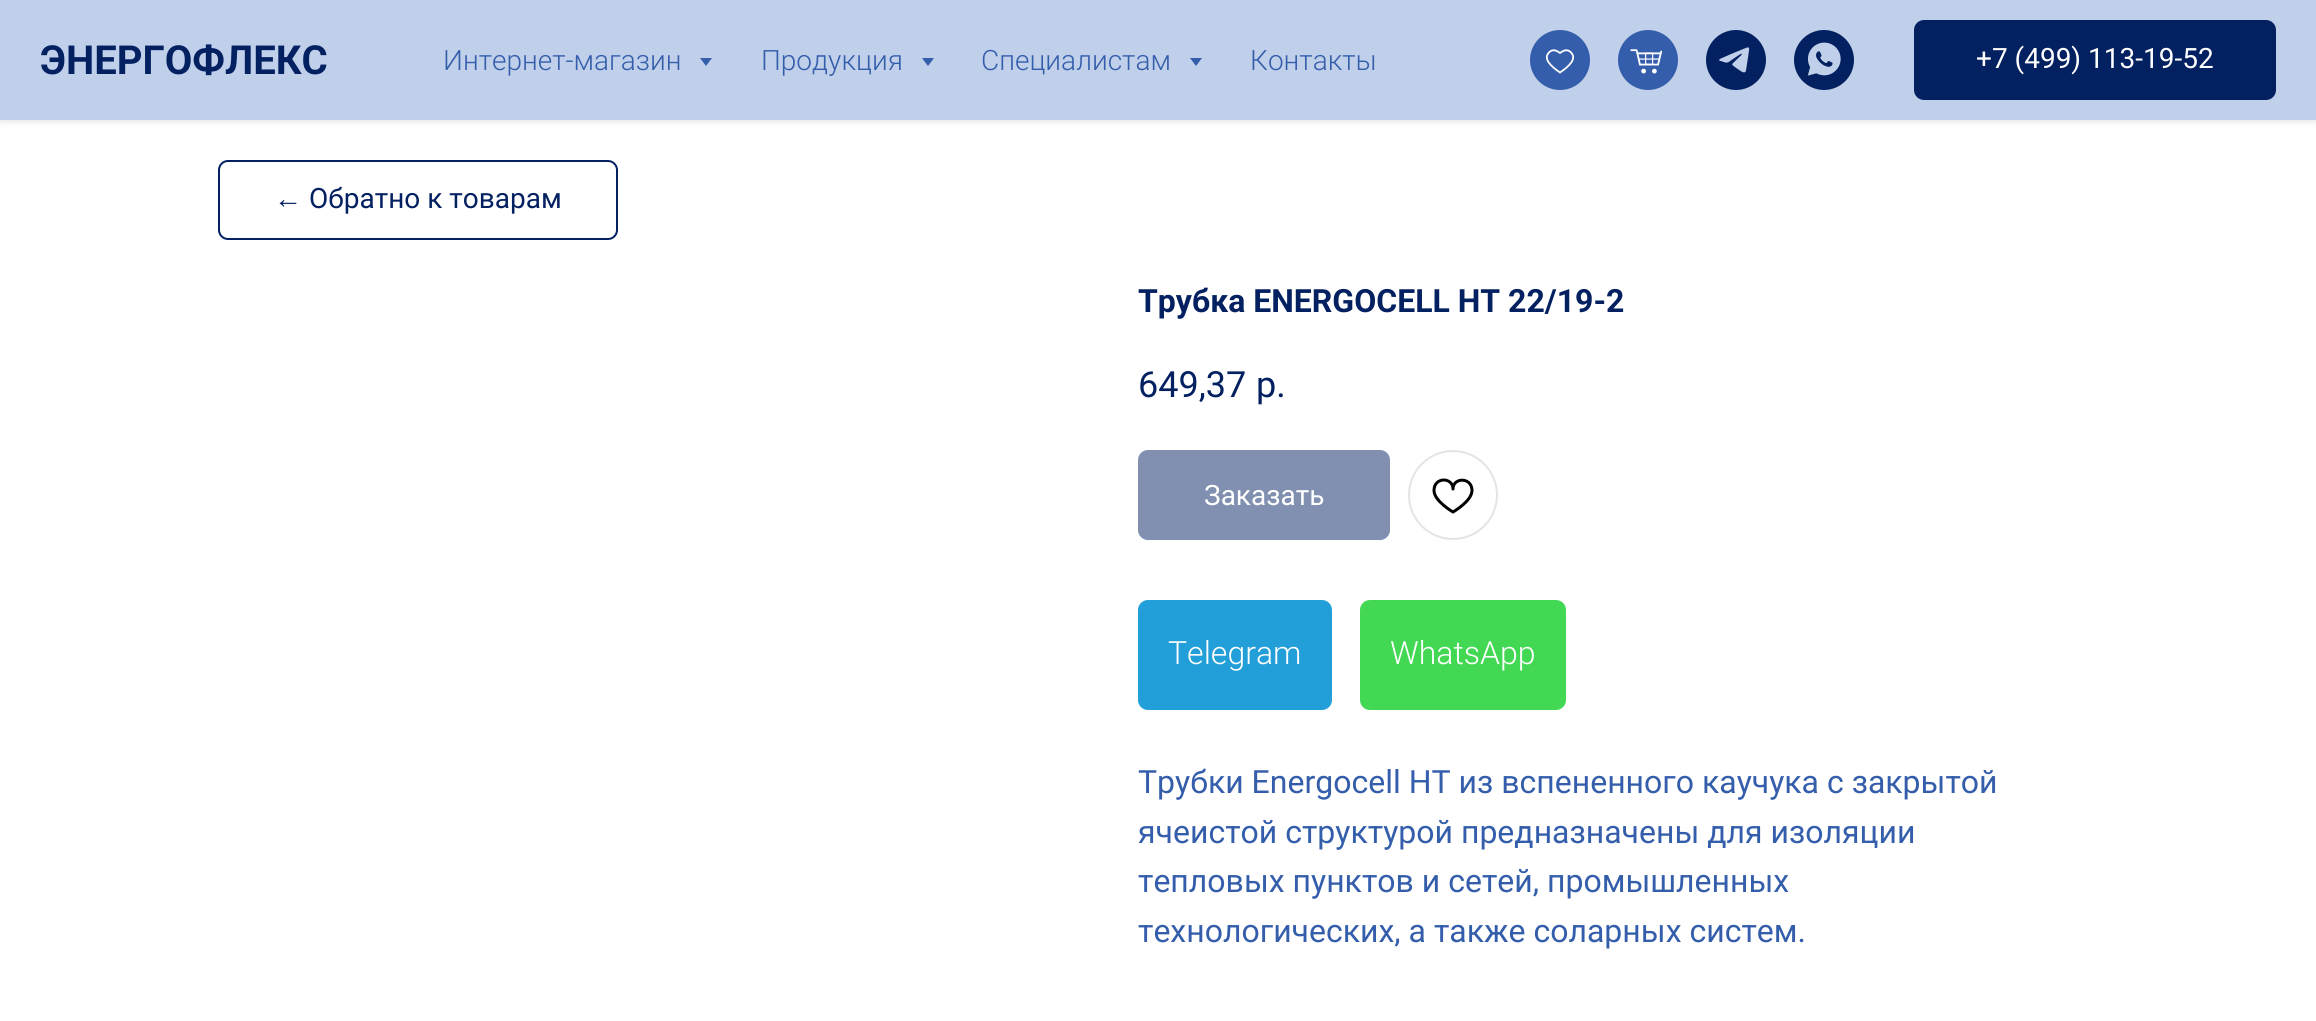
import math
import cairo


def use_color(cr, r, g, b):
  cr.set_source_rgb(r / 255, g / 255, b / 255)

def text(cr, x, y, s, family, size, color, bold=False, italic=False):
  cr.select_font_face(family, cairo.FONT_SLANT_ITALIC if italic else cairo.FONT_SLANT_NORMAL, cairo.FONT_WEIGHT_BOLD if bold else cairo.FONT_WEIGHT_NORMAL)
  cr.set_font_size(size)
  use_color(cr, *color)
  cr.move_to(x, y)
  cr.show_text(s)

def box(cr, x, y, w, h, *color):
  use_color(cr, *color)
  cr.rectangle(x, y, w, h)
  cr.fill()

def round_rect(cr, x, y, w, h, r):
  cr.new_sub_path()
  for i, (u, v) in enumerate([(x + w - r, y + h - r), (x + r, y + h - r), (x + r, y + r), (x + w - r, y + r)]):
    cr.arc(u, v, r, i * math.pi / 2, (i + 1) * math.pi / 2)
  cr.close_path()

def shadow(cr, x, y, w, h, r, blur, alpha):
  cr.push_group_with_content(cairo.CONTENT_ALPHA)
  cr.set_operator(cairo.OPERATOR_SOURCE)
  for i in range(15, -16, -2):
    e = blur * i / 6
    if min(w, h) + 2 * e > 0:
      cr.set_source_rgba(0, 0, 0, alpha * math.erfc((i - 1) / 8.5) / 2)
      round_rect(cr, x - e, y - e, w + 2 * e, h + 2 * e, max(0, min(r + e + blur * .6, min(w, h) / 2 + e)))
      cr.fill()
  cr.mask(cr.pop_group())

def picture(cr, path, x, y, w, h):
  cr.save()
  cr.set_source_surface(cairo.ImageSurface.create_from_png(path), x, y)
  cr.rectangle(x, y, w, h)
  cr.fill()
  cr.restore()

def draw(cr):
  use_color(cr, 255, 255, 255)
  cr.paint()
  use_color(cr, 0, 0, 0)
  shadow(cr, 0, 2, 2316, 120, 0, 3, 0.1)
  box(cr, 0, 0, 2316, 120, 192, 208, 234)
  use_color(cr, 52, 94, 171)
  cr.new_path()
  cr.move_to(700, 58)
  cr.line_to(712, 58)
  cr.line_to(706, 66)
  cr.close_path()
  cr.fill()
  cr.new_path()
  cr.move_to(922, 58)
  cr.line_to(934, 58)
  cr.line_to(928, 66)
  cr.close_path()
  cr.fill()
  cr.new_path()
  cr.move_to(1190, 58)
  cr.line_to(1202, 58)
  cr.line_to(1196, 66)
  cr.close_path()
  cr.fill()
  cr.arc(1560, 60, 30, 0, 2 * math.pi)
  cr.fill()
  cr.new_path()
  cr.move_to(1560, 53)
  cr.curve_to(1557.5, 51, 1552.5, 48, 1548.5, 53)
  cr.curve_to(1543.5, 59, 1550.5, 66, 1560, 72.5)
  cr.move_to(1560, 53)
  cr.curve_to(1562.5, 51, 1567.5, 48, 1571.5, 53)
  cr.curve_to(1576.5, 59, 1569.5, 66, 1560, 72.5)
  use_color(cr, 255, 255, 255)
  cr.set_line_width(1.8)
  cr.set_line_cap(cairo.LINE_CAP_ROUND)
  cr.stroke()
  picture(cr, "img_01.png", 1618, 30, 60, 60)
  picture(cr, "img_02.png", 1706, 30, 60, 60)
  picture(cr, "img_03.png", 1794, 30, 60, 60)
  use_color(cr, 3, 32, 97)
  round_rect(cr, 1915, 21, 360, 78, 9)
  cr.fill_preserve()
  cr.set_line_width(2)
  cr.set_line_cap(cairo.LINE_CAP_BUTT)
  cr.stroke()
  round_rect(cr, 219, 161, 398, 78, 9)
  cr.stroke()
  use_color(cr, 129, 144, 176)
  round_rect(cr, 1139, 451, 250, 88, 9)
  cr.fill_preserve()
  cr.stroke()
  cr.arc(1453, 495, 44, 0, 2 * math.pi)
  use_color(cr, 228, 228, 228)
  cr.stroke()
  cr.new_path()
  cr.move_to(1472, 490.5)
  cr.curve_to(1472, 501, 1453, 512, 1453, 512)
  cr.curve_to(1453, 512, 1434, 501, 1434, 490.5)
  cr.curve_to(1434, 476.5, 1453, 477, 1453, 489)
  cr.curve_to(1453, 477, 1472, 477, 1472, 490.5)
  cr.close_path()
  use_color(cr, 0, 0, 0)
  cr.set_line_width(3)
  cr.set_line_join(cairo.LINE_JOIN_ROUND)
  cr.stroke()
  use_color(cr, 34, 158, 217)
  round_rect(cr, 1138, 600, 194, 110, 10)
  cr.fill()
  use_color(cr, 67, 216, 84)
  round_rect(cr, 1360, 600, 206, 110, 10)
  cr.fill()
  text(cr, 40, 74, "ЭНЕРГОФЛЕКС", "Roboto", 40, (3, 32, 97), bold=True)
  text(cr, 443, 70, "Интернет-магазин", "Roboto Light", 28, (52, 94, 171))
  text(cr, 761, 70, "Продукция", "Roboto Light", 28, (52, 94, 171))
  text(cr, 981, 70, "Специалистам", "Roboto Light", 28, (52, 94, 171))
  text(cr, 1250, 70, "Контакты", "Roboto Light", 28, (52, 94, 171))
  text(cr, 1976, 68, "+7 (499) 113-19-52", "Roboto", 28, (255, 255, 255))
  text(cr, 274, 208, "←", "Liberation Sans", 28, (3, 32, 97))
  text(cr, 309, 208, "Обратно к товарам", "Roboto", 28, (3, 32, 97))
  text(cr, 1138, 312, "Трубка ENERGOCELL HT 22/19-2", "Roboto", 32, (3, 32, 97), bold=True)
  text(cr, 1138, 397, "649,37", "Roboto", 36, (3, 32, 97))
  text(cr, 1256, 397, "р.", "Roboto", 36, (3, 32, 97))
  text(cr, 1204, 505, "Заказать", "Roboto", 28, (255, 255, 255))
  text(cr, 1168, 664, "Telegram", "Roboto Light", 32, (255, 255, 255))
  text(cr, 1390, 664, "WhatsApp", "Roboto Light", 32, (255, 255, 255))
  text(cr, 1138, 793, "Трубки Energocell HT из вспененного каучука с закрытой", "Roboto", 32, (52, 94, 171))
  text(cr, 1138, 843, "ячеистой структурой предназначены для изоляции", "Roboto", 32, (52, 94, 171))
  text(cr, 1138, 892, "тепловых пунктов и сетей, промышленных", "Roboto", 32, (52, 94, 171))
  text(cr, 1138, 942, "технологических, а также соларных систем.", "Roboto", 32, (52, 94, 171))


surface = cairo.ImageSurface(cairo.FORMAT_RGB24, 2316, 1021)
cr = cairo.Context(surface)
options = cairo.FontOptions()
options.set_hint_metrics(cairo.HINT_METRICS_OFF)
options.set_hint_style(cairo.HINT_STYLE_NONE)
cr.set_font_options(options)
cr.set_miter_limit(4)
draw(cr)
surface.write_to_png("out.png")
